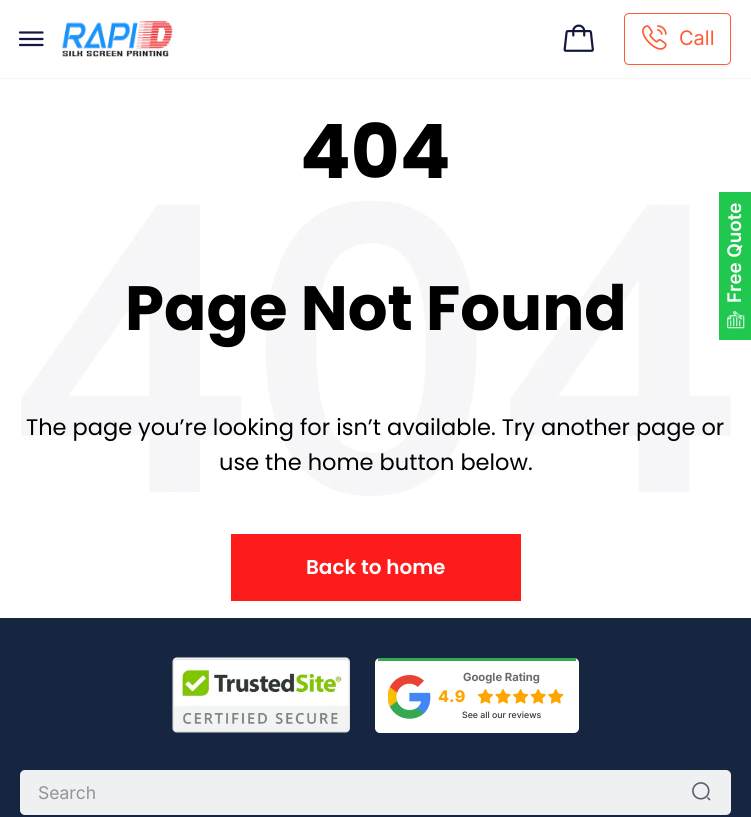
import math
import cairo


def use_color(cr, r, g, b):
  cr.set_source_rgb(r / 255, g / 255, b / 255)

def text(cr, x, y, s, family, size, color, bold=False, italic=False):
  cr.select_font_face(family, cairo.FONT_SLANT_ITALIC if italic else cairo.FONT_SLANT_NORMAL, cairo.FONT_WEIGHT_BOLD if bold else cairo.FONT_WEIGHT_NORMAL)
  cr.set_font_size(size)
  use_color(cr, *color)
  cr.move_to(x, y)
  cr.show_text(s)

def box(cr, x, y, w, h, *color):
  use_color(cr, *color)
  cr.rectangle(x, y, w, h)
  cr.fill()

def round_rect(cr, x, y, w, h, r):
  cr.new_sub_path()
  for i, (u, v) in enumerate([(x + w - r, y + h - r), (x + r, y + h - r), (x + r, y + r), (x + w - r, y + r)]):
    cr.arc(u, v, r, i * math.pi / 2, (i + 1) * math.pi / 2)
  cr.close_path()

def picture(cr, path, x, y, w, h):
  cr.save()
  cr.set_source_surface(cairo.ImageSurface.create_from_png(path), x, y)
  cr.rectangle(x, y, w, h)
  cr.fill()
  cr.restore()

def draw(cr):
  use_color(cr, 255, 255, 255)
  cr.paint()
  box(cr, 0, 78, 751, 1, 244, 245, 247)
  cr.new_path()
  cr.move_to(20, 32.5)
  cr.line_to(42.5, 32.5)
  cr.move_to(20, 39)
  cr.line_to(42.5, 39)
  cr.move_to(20, 45)
  cr.line_to(42.5, 45)
  use_color(cr, 19, 23, 64)
  cr.set_line_width(2.2)
  cr.set_line_cap(cairo.LINE_CAP_ROUND)
  cr.stroke()
  picture(cr, "img_01.png", 62, 21, 111, 36)
  picture(cr, "img_02.png", 563, 24, 31, 28)
  use_color(cr, 250, 250, 250)
  cr.new_path()
  cr.move_to(624, 62)
  cr.curve_to(624, 72, 638, 68, 645, 68)
  cr.line_to(710, 68)
  cr.curve_to(717, 68, 731, 72, 731, 62)
  cr.curve_to(730, 64, 728, 65, 726, 65)
  cr.line_to(629, 65)
  cr.curve_to(627, 65, 625, 64, 624, 62)
  cr.close_path()
  cr.fill()
  round_rect(cr, 624.5, 13.5, 106, 51, 4.5)
  use_color(cr, 255, 92, 53)
  cr.set_line_width(1)
  cr.set_line_cap(cairo.LINE_CAP_BUTT)
  cr.stroke()
  picture(cr, "img_03.png", 642, 25, 25, 25)
  picture(cr, "img_05.png", 21, 201, 710, 295)
  box(cr, 719, 192, 32, 148, 32, 200, 79)
  picture(cr, "img_04.png", 727, 311, 18, 18)
  box(cr, 231, 534, 290, 67, 253, 27, 27)
  box(cr, 0, 618, 751, 199, 23, 38, 64)
  picture(cr, "img_06.png", 172, 657, 178, 76)
  use_color(cr, 255, 255, 255)
  round_rect(cr, 375, 658, 204, 75, 5)
  cr.fill()
  box(cr, 378, 658, 198, 3, 52, 168, 83)
  picture(cr, "img_07.png", 388, 675, 43, 44)
  picture(cr, "img_08.png", 477, 689, 87, 15)
  use_color(cr, 239, 240, 242)
  round_rect(cr, 20, 770, 711, 45, 5)
  cr.fill()
  picture(cr, "img_09.png", 692, 782, 19, 19)
  text(cr, 679, 45, "Call", "Inter", 20, (255, 92, 53))
  cr.save()
  cr.translate(741, 303)
  cr.rotate(-90 * math.pi / 180)
  text(cr, 0, 0, "Free Quote", "Inter SemiBold", 18.75, (255, 255, 255))
  cr.restore()
  text(cr, 300, 178, "404", "Poppins", 75, (0, 0, 0), bold=True)
  text(cr, 125, 330, "Page Not Found", "Poppins", 62.5, (0, 0, 0), bold=True)
  text(cr, 26, 435, "The page you’re looking for isn’t available. Try another page or", "Poppins", 22.5, (0, 0, 0))
  text(cr, 219, 470, "use the home button below.", "Poppins", 22.5, (0, 0, 0))
  text(cr, 306, 574, "Back to home", "Poppins SemiBold", 20, (255, 255, 255))
  text(cr, 463, 681, "Google Rating", "Inter", 11.25, (106, 106, 106), bold=True)
  text(cr, 438, 702, "4.9", "Inter ExtraBold", 16, (254, 165, 0))
  text(cr, 462, 718, "See all our reviews", "Inter Medium", 8.75, (53, 53, 53))
  text(cr, 38, 799, "Search", "Inter", 17.5, (146, 148, 151))


surface = cairo.ImageSurface(cairo.FORMAT_RGB24, 751, 817)
cr = cairo.Context(surface)
options = cairo.FontOptions()
options.set_hint_metrics(cairo.HINT_METRICS_OFF)
options.set_hint_style(cairo.HINT_STYLE_NONE)
cr.set_font_options(options)
cr.set_miter_limit(4)
draw(cr)
surface.write_to_png("out.png")
